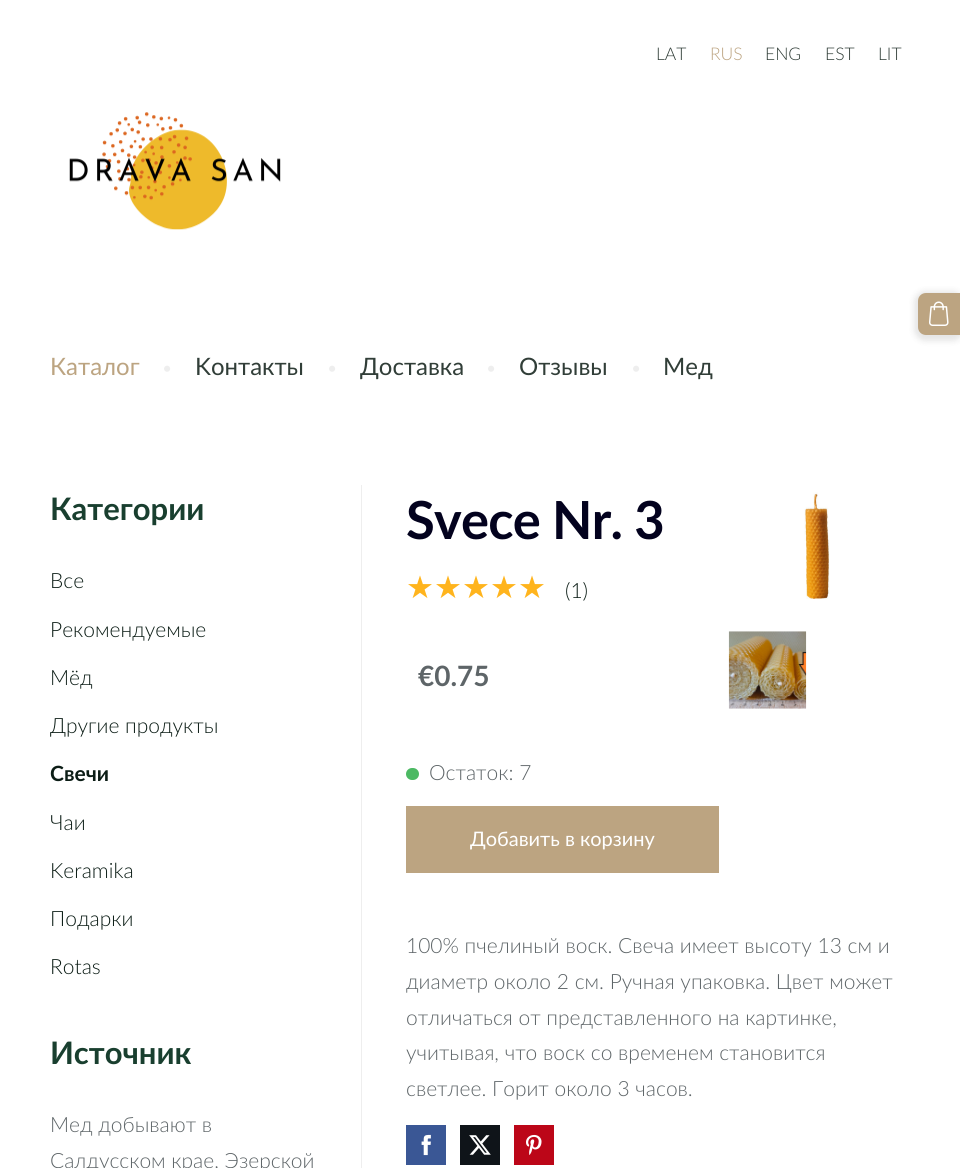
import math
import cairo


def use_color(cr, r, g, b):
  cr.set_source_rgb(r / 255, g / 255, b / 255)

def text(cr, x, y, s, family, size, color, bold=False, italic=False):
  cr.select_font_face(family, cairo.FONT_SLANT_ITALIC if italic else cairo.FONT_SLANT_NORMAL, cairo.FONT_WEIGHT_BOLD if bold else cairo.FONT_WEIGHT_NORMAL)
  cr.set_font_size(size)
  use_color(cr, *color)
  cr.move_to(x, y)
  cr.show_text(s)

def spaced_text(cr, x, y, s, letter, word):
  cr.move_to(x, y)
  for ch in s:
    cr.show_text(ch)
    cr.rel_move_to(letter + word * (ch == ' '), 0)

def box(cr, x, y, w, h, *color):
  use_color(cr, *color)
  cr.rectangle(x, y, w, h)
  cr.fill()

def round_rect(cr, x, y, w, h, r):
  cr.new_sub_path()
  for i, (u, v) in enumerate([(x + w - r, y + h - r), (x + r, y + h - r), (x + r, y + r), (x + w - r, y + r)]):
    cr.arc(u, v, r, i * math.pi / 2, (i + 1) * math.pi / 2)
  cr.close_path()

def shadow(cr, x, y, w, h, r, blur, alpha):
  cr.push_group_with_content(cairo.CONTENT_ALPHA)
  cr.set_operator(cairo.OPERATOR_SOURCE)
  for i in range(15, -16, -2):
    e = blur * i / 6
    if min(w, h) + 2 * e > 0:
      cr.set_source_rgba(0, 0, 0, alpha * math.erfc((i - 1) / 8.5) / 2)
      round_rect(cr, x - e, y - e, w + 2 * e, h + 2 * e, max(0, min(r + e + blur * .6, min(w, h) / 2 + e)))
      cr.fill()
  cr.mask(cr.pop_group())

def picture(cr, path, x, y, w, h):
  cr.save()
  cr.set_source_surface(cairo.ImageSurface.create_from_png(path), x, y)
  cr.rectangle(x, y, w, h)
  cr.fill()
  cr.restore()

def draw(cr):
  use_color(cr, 255, 255, 255)
  cr.paint()
  picture(cr, "img_01.png", 69, 112, 212, 118)
  use_color(cr, 0, 0, 0)
  shadow(cr, 914, 291, 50, 50, 11, 3, 0.1)
  use_color(cr, 188, 164, 129)
  cr.new_path()
  cr.move_to(926, 293)
  cr.line_to(960, 293)
  cr.line_to(960, 335)
  cr.line_to(926, 335)
  cr.curve_to(921.5, 335, 918, 331.5, 918, 327)
  cr.line_to(918, 301)
  cr.curve_to(918, 296.5, 921.5, 293, 926, 293)
  cr.close_path()
  cr.fill()
  picture(cr, "img_02.png", 929, 301, 20, 25)
  box(cr, 361, 485, 1, 683, 238, 238, 238)
  picture(cr, "img_03.png", 804, 492, 26, 107)
  picture(cr, "img_04.png", 728, 631, 79, 78)
  use_color(cr, 76, 185, 99)
  round_rect(cr, 406, 768, 13, 12, 6)
  cr.fill()
  box(cr, 406, 806, 313, 67, 188, 164, 129)
  box(cr, 406, 1125, 40, 40, 58, 87, 149)
  picture(cr, "img_05.png", 421, 1134, 10, 22)
  box(cr, 460, 1125, 40, 40, 15, 20, 25)
  picture(cr, "img_06.png", 469, 1135, 22, 20)
  box(cr, 514, 1125, 40, 40, 188, 6, 24)
  picture(cr, "img_07.png", 526, 1134, 16, 21)
  text(cr, 656, 60, "LAT", "Lato Light", 17.5, (49, 62, 56))
  text(cr, 710, 60, "RUS", "Lato Light", 17.5, (188, 164, 129))
  text(cr, 765, 60, "ENG", "Lato Light", 17.5, (49, 62, 56))
  text(cr, 825, 60, "EST", "Lato Light", 17.5, (49, 62, 56))
  text(cr, 878, 60, "LIT", "Lato Light", 17.5, (49, 62, 56))
  text(cr, 50, 375, "Каталог", "Lato", 24, (188, 164, 129))
  text(cr, 161, 375, "•", "Lato Light", 21, (238, 238, 238))
  text(cr, 195, 375, "Kонтакты", "Lato", 24, (49, 62, 56))
  text(cr, 326, 375, "•", "Lato Light", 21, (238, 238, 238))
  text(cr, 360, 375, "Доставка", "Lato", 24, (49, 62, 56))
  text(cr, 485, 375, "•", "Lato Light", 21, (238, 238, 238))
  text(cr, 519, 375, "Отзывы", "Lato", 24, (49, 62, 56))
  text(cr, 630, 375, "•", "Lato Light", 21, (238, 238, 238))
  text(cr, 663, 375, "Мед", "Lato", 24, (49, 62, 56))
  text(cr, 50, 520, "Категории", "Lato", 31, (25, 63, 47), bold=True)
  text(cr, 50, 588, "Все", "Lato Light", 21, (12, 29, 22))
  text(cr, 50, 637, "Рекомендуемые", "Lato Light", 21, (12, 29, 22))
  text(cr, 50, 685, "Мёд", "Lato Light", 21, (12, 29, 22))
  text(cr, 50, 733, "Другие продукты", "Lato Light", 21, (12, 29, 22))
  text(cr, 50, 781, "Свечи", "Lato", 21, (12, 29, 22), bold=True)
  text(cr, 50, 830, "Чаи", "Lato Light", 21, (12, 29, 22))
  text(cr, 50, 878, "Keramika", "Lato Light", 21, (12, 29, 22))
  text(cr, 50, 926, "Подарки", "Lato Light", 21, (12, 29, 22))
  text(cr, 50, 974, "Rotas", "Lato Light", 21, (12, 29, 22))
  text(cr, 50, 1064, "Источник", "Lato", 31, (25, 63, 47), bold=True)
  text(cr, 50, 1132, "Мед добывают в", "Lato Light", 21, (94, 101, 104))
  text(cr, 50, 1168, "Салдусском крае, Эзерской", "Lato Light", 21, (94, 101, 104))
  cr.select_font_face("Lato", cairo.FONT_SLANT_NORMAL, cairo.FONT_WEIGHT_BOLD)
  cr.set_font_size(52.5)
  use_color(cr, 3, 2, 30)
  spaced_text(cr, 406, 539, "Svece Nr. 3", -0.75, 0)
  text(cr, 406, 598, "★★★★★", "DejaVu Sans", 31.25, (255, 180, 29))
  text(cr, 565, 598, "(1)", "Lato Light", 21, (12, 29, 22))
  text(cr, 418, 686, "€0.75", "Lato", 28, (94, 101, 104), bold=True)
  text(cr, 429, 780, "Остаток: 7", "Lato Light", 21, (94, 101, 104))
  text(cr, 470, 846, "Добавить в корзину", "Lato", 20, (255, 255, 255))
  text(cr, 406, 953, "100% пчелиный воск. Свеча имеет высоту 13 см и", "Lato Light", 21, (94, 101, 104))
  text(cr, 406, 989, "диаметр около 2 см. Ручная упаковка. Цвет может", "Lato Light", 21, (94, 101, 104))
  text(cr, 406, 1025, "отличаться от представленного на картинке,", "Lato Light", 21, (94, 101, 104))
  text(cr, 406, 1060, "учитывая, что воск со временем становится", "Lato Light", 21, (94, 101, 104))
  text(cr, 406, 1096, "светлее. Горит около 3 часов.", "Lato Light", 21, (94, 101, 104))


surface = cairo.ImageSurface(cairo.FORMAT_RGB24, 960, 1168)
cr = cairo.Context(surface)
options = cairo.FontOptions()
options.set_hint_metrics(cairo.HINT_METRICS_OFF)
options.set_hint_style(cairo.HINT_STYLE_NONE)
cr.set_font_options(options)
cr.set_miter_limit(4)
draw(cr)
surface.write_to_png("out.png")
